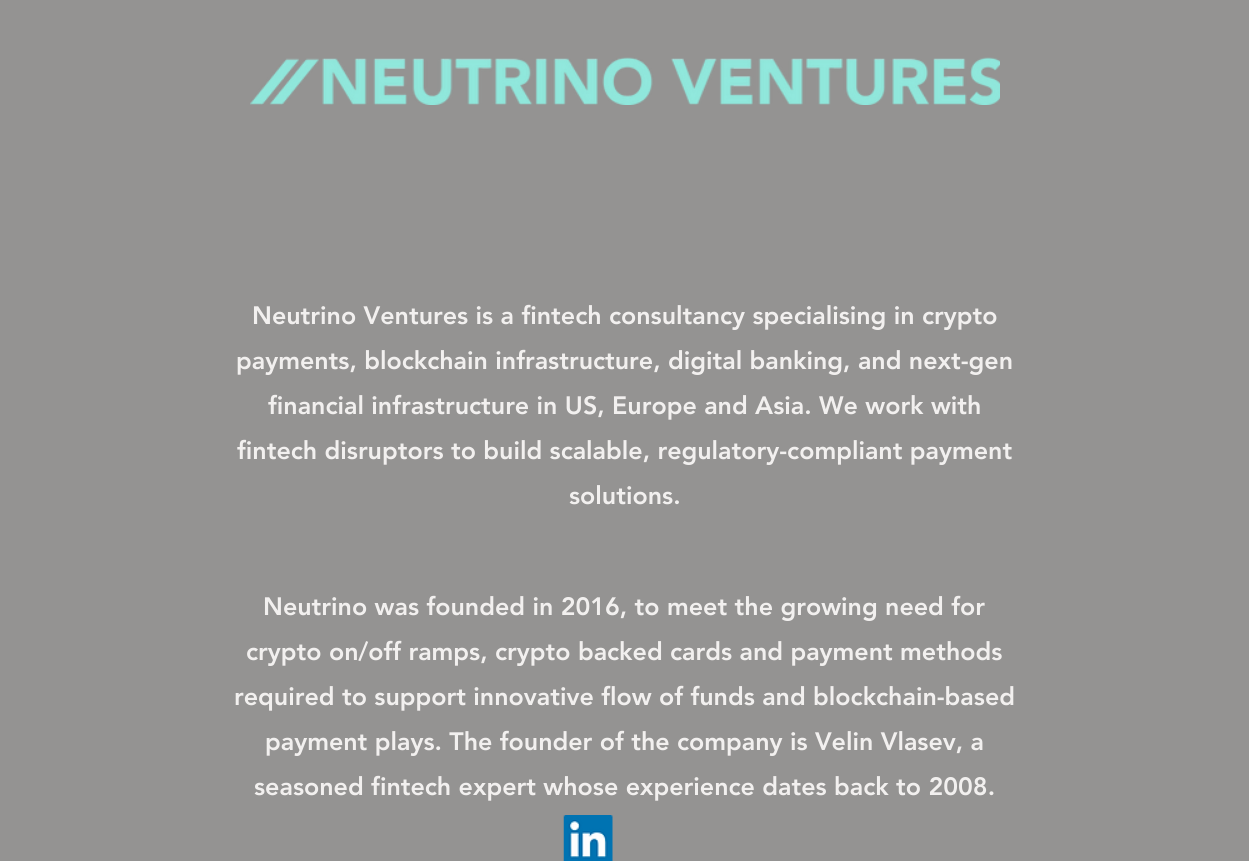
import math
import cairo


def use_color(cr, r, g, b):
  cr.set_source_rgb(r / 255, g / 255, b / 255)

def text(cr, x, y, s, family, size, color, bold=False, italic=False):
  cr.select_font_face(family, cairo.FONT_SLANT_ITALIC if italic else cairo.FONT_SLANT_NORMAL, cairo.FONT_WEIGHT_BOLD if bold else cairo.FONT_WEIGHT_NORMAL)
  cr.set_font_size(size)
  use_color(cr, *color)
  cr.move_to(x, y)
  cr.show_text(s)

def picture(cr, path, x, y, w, h):
  cr.save()
  cr.set_source_surface(cairo.ImageSurface.create_from_png(path), x, y)
  cr.rectangle(x, y, w, h)
  cr.fill()
  cr.restore()

def draw(cr):
  use_color(cr, 148, 147, 146)
  cr.paint()
  picture(cr, "img_01.png", 250, 57, 750, 48)
  picture(cr, "img_02.png", 563, 815, 50, 46)
  text(cr, 252, 324, "Neutrino Ventures is a fintech consultancy specialising in crypto", "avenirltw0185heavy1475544 Black", 25, (242, 240, 239))
  text(cr, 236, 369, "payments, blockchain infrastructure, digital banking, and next-gen", "avenirltw0185heavy1475544 Black", 25, (242, 240, 239))
  text(cr, 268, 414, "financial infrastructure in US, Europe and Asia. We work with", "avenirltw0185heavy1475544 Black", 25, (242, 240, 239))
  text(cr, 237, 459, "fintech disruptors to build scalable, regulatory-compliant payment", "avenirltw0185heavy1475544 Black", 25, (242, 240, 239))
  text(cr, 569, 504, "solutions.", "avenirltw0185heavy1475544 Black", 25, (242, 240, 239))
  text(cr, 263, 615, "Neutrino was founded in 2016, to meet the growing need for", "avenirltw0185heavy1475544 Black", 25, (242, 240, 239))
  text(cr, 246, 660, "crypto on/off ramps, crypto backed cards and payment methods", "avenirltw0185heavy1475544 Black", 25, (242, 240, 239))
  text(cr, 234, 705, "required to support innovative flow of funds and blockchain-based", "avenirltw0185heavy1475544 Black", 25, (242, 240, 239))
  text(cr, 265, 750, "payment plays. The founder of the company is Velin Vlasev, a", "avenirltw0185heavy1475544 Black", 25, (242, 240, 239))
  text(cr, 254, 795, "seasoned fintech expert whose experience dates back to 2008.", "avenirltw0185heavy1475544 Black", 25, (242, 240, 239))


surface = cairo.ImageSurface(cairo.FORMAT_RGB24, 1249, 861)
cr = cairo.Context(surface)
options = cairo.FontOptions()
options.set_hint_metrics(cairo.HINT_METRICS_OFF)
options.set_hint_style(cairo.HINT_STYLE_NONE)
cr.set_font_options(options)
cr.set_miter_limit(4)
draw(cr)
surface.write_to_png("out.png")
